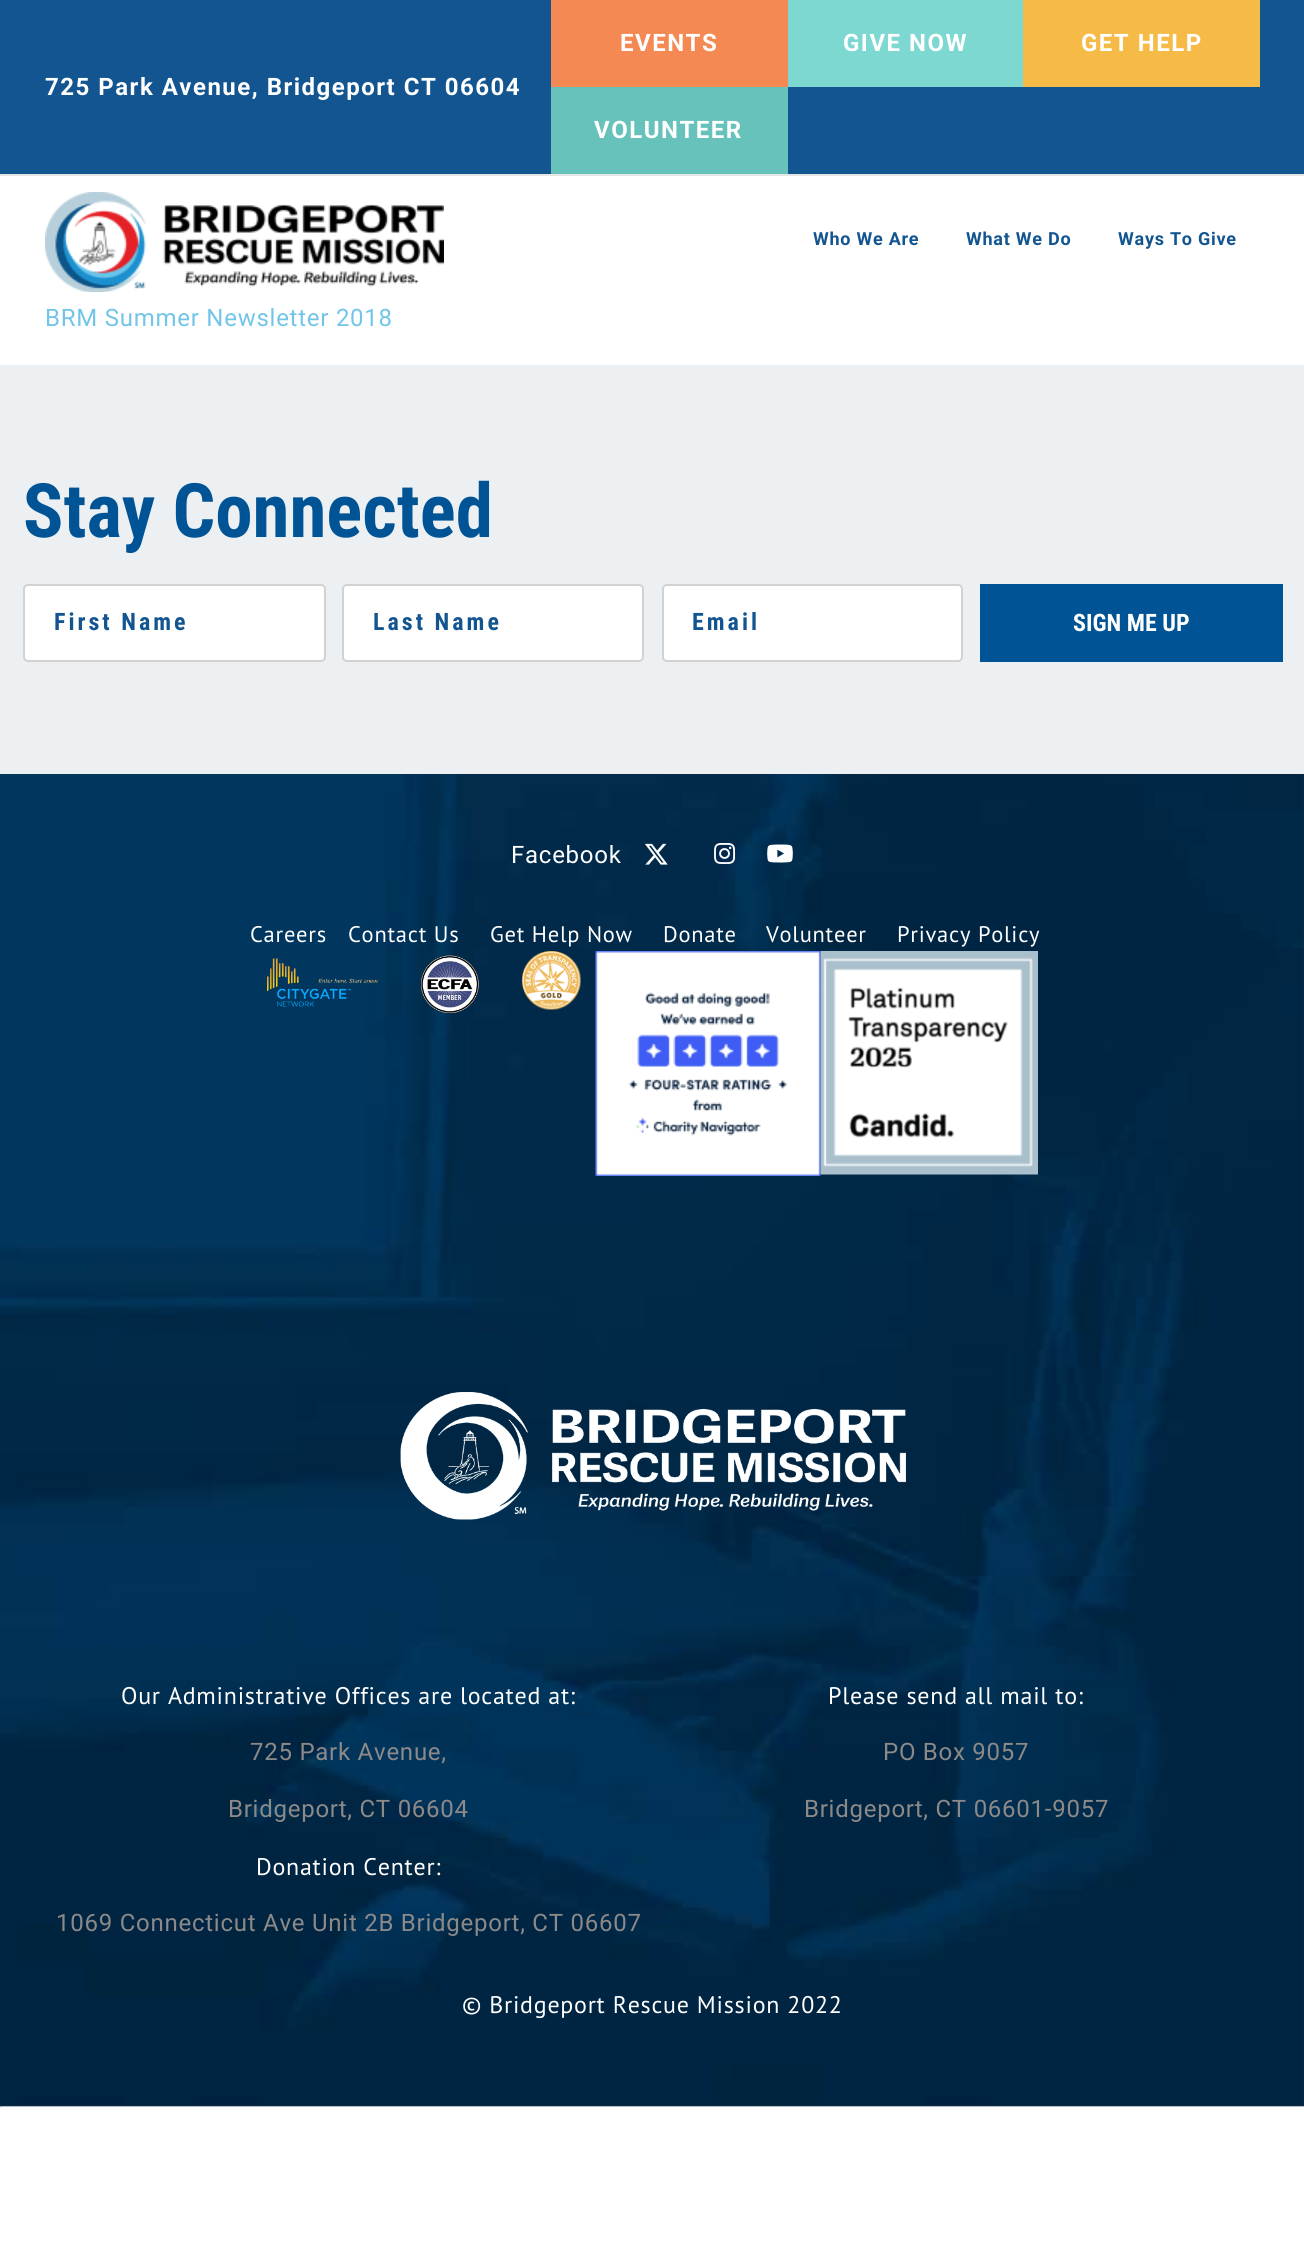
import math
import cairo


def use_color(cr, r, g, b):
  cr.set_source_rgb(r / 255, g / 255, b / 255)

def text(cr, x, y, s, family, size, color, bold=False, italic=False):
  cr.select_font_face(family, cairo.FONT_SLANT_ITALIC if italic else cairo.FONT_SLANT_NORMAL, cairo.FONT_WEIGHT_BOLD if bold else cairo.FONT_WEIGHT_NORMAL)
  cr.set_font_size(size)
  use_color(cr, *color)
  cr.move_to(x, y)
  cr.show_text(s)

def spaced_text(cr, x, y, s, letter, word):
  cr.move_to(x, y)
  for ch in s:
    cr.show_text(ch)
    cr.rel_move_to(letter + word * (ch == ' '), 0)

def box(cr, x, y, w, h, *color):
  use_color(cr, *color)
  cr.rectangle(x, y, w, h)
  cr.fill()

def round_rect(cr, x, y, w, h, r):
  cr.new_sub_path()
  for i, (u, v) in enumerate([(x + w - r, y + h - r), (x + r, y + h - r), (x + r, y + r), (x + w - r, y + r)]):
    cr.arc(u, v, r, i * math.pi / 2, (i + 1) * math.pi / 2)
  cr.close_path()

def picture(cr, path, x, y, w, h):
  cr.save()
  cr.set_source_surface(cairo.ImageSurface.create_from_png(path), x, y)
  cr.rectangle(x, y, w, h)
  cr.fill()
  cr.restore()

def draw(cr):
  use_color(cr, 255, 255, 255)
  cr.paint()
  box(cr, 0, 0, 1304, 174, 19, 85, 144)
  box(cr, 0, 174, 1304, 2, 229, 229, 229)
  box(cr, 551, 0, 237, 87, 245, 137, 83)
  box(cr, 788, 0, 235, 87, 125, 216, 210)
  box(cr, 1023, 0, 237, 87, 246, 187, 71)
  box(cr, 551, 87, 237, 87, 103, 194, 187)
  picture(cr, "img_01.png", 45, 192, 399, 100)
  box(cr, 0, 365, 1304, 409, 236, 240, 243)
  use_color(cr, 255, 255, 255)
  round_rect(cr, 24, 585, 301, 76, 4)
  cr.fill_preserve()
  use_color(cr, 210, 210, 210)
  cr.stroke()
  use_color(cr, 255, 255, 255)
  round_rect(cr, 343, 585, 300, 76, 4)
  cr.fill_preserve()
  use_color(cr, 210, 210, 210)
  cr.stroke()
  use_color(cr, 255, 255, 255)
  round_rect(cr, 663, 585, 299, 76, 4)
  cr.fill_preserve()
  use_color(cr, 210, 210, 210)
  cr.stroke()
  box(cr, 980, 584, 303, 78, 0, 83, 148)
  box(cr, 0, 774, 1304, 1332, 54, 56, 57)
  picture(cr, "img_12.png", 0, 2106, 2, 2)
  picture(cr, "img_02.png", 0, 774, 1304, 1333)
  picture(cr, "img_03.png", 645, 843, 23, 22)
  picture(cr, "img_04.png", 714, 843, 22, 21)
  picture(cr, "img_05.png", 767, 844, 26, 19)
  picture(cr, "img_06.png", 267, 958, 111, 49)
  picture(cr, "img_07.png", 420, 955, 59, 59)
  picture(cr, "img_08.png", 522, 951, 59, 59)
  picture(cr, "img_09.png", 595, 951, 226, 225)
  picture(cr, "img_10.png", 820, 951, 218, 224)
  picture(cr, "img_11.png", 400, 1392, 506, 128)
  cr.select_font_face("Roboto", cairo.FONT_SLANT_NORMAL, cairo.FONT_WEIGHT_BOLD)
  cr.set_font_size(24)
  use_color(cr, 255, 255, 255)
  spaced_text(cr, 45, 95, "725 Park Avenue, Bridgeport CT 06604", 1.5, 0)
  spaced_text(cr, 620, 51, "EVENTS", 1.5, 0)
  spaced_text(cr, 843, 51, "GIVE NOW", 1.5, 0)
  spaced_text(cr, 1081, 51, "GET HELP", 1.5, 0)
  spaced_text(cr, 594, 138, "VOLUNTEER", 1.5, 0)
  cr.set_font_size(18)
  use_color(cr, 19, 85, 144)
  spaced_text(cr, 813, 245, "Who We Are", 0.75, 0)
  spaced_text(cr, 966, 245, "What We Do", 0.75, 0)
  spaced_text(cr, 1118, 245, "Ways To Give", 0.75, 0)
  cr.select_font_face("Roboto")
  cr.set_font_size(24)
  use_color(cr, 114, 197, 232)
  spaced_text(cr, 45, 326, "BRM Summer Newsletter 2018", 0.75, 0)
  text(cr, 23, 537, "Stay Connected", "Roboto Condensed", 75, (0, 83, 148), bold=True)
  cr.set_font_size(24)
  use_color(cr, 19, 85, 144)
  spaced_text(cr, 54, 630, "First Name", 3, 0)
  spaced_text(cr, 373, 630, "Last Name", 3, 0)
  spaced_text(cr, 692, 630, "Email", 3, 0)
  text(cr, 1073, 631, "SIGN ME UP", "Roboto Condensed", 24, (255, 255, 255), bold=True)
  cr.select_font_face("Roboto")
  spaced_text(cr, 511, 863, "Facebook", 0.75, 0)
  cr.select_font_face("PT Sans")
  cr.set_font_size(22.5)
  spaced_text(cr, 250, 942, "Careers", 0.75, 0)
  spaced_text(cr, 348, 942, "Contact Us", 0.75, 0)
  spaced_text(cr, 490, 942, "Get Help Now", 0.75, 0)
  spaced_text(cr, 663, 942, "Donate", 0.75, 0)
  spaced_text(cr, 766, 942, "Volunteer", 0.75, 0)
  spaced_text(cr, 897, 942, "Privacy Policy", 0.75, 0)
  cr.set_font_size(24)
  spaced_text(cr, 121, 1704, "Our Administrative Offices are located at:", 0.75, 0)
  cr.select_font_face("Roboto")
  use_color(cr, 140, 137, 137)
  spaced_text(cr, 250, 1760, "725 Park Avenue,", 0.75, 0)
  spaced_text(cr, 228, 1817, "Bridgeport, CT 06604", 0.75, 0)
  cr.select_font_face("PT Sans")
  use_color(cr, 255, 255, 255)
  spaced_text(cr, 256, 1875, "Donation Center:", 0.75, 0)
  cr.select_font_face("Roboto")
  use_color(cr, 140, 137, 137)
  spaced_text(cr, 56, 1931, "1069 Connecticut Ave Unit 2B Bridgeport, CT 06607", 0.75, 0)
  cr.select_font_face("PT Sans")
  use_color(cr, 255, 255, 255)
  spaced_text(cr, 828, 1704, "Please send all mail to:", 0.75, 0)
  cr.select_font_face("Roboto")
  use_color(cr, 140, 137, 137)
  spaced_text(cr, 883, 1760, "PO Box 9057", 0.75, 0)
  spaced_text(cr, 804, 1817, "Bridgeport, CT 06601-9057", 0.75, 0)
  cr.select_font_face("PT Sans")
  use_color(cr, 255, 255, 255)
  spaced_text(cr, 462, 2013, "© Bridgeport Rescue Mission 2022", 0.75, 0)


surface = cairo.ImageSurface(cairo.FORMAT_RGB24, 1304, 2268)
cr = cairo.Context(surface)
options = cairo.FontOptions()
options.set_hint_metrics(cairo.HINT_METRICS_OFF)
options.set_hint_style(cairo.HINT_STYLE_NONE)
cr.set_font_options(options)
cr.set_miter_limit(4)
draw(cr)
surface.write_to_png("out.png")
